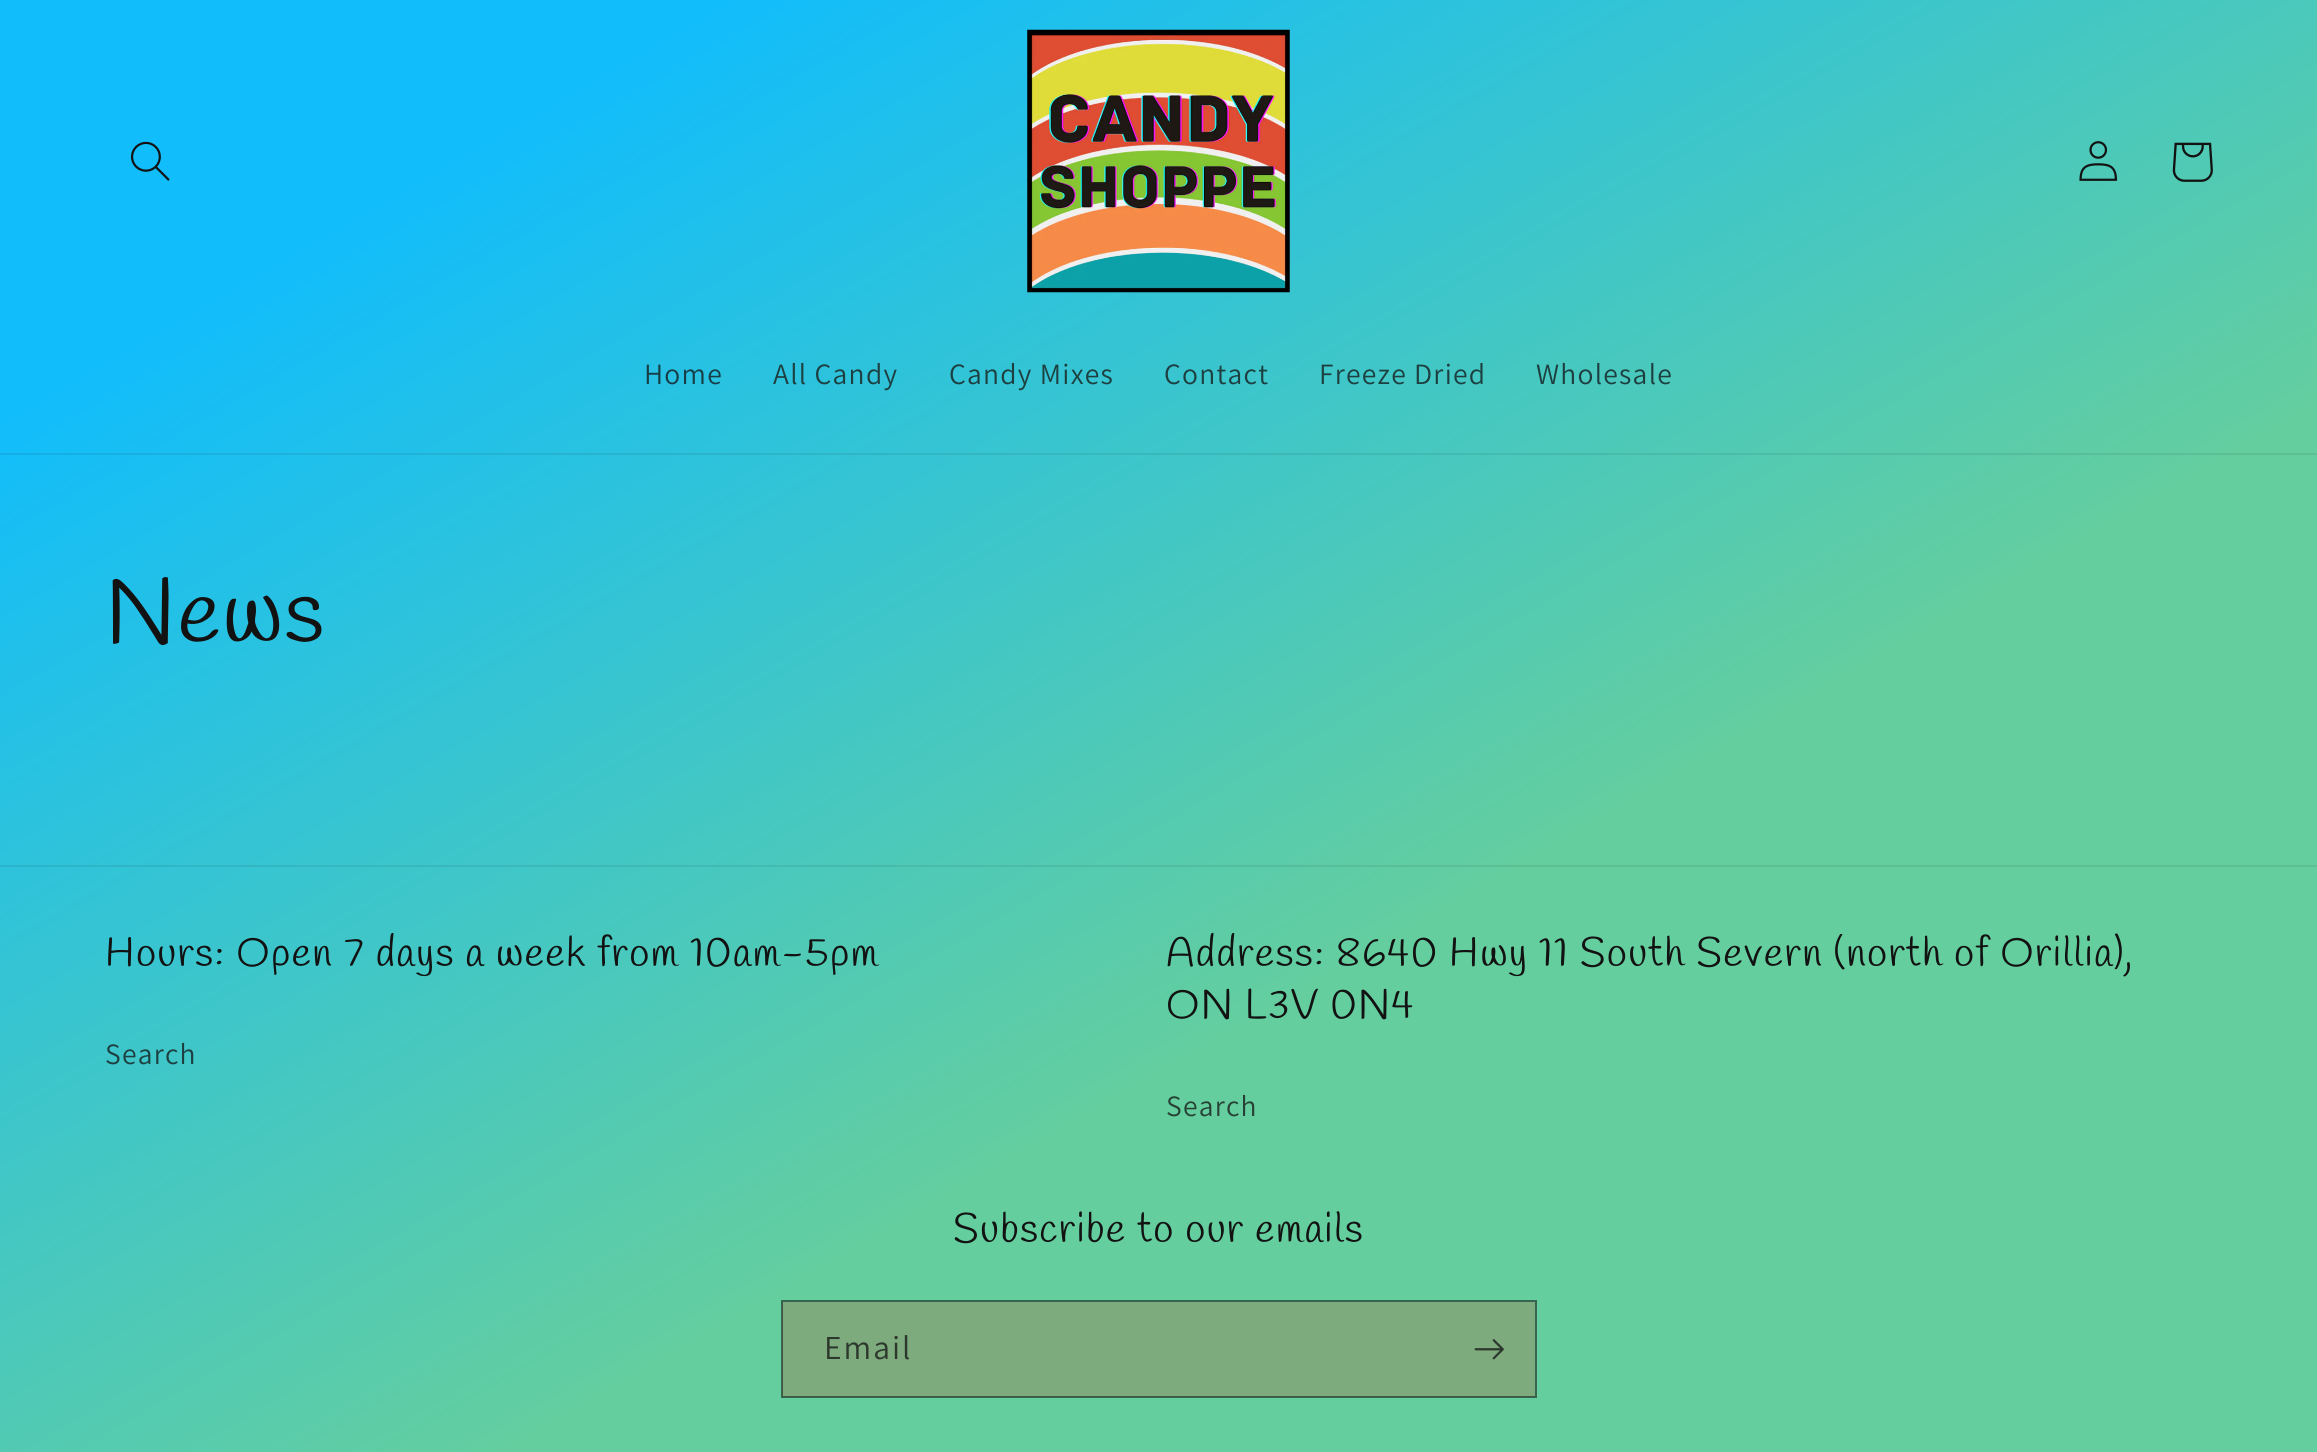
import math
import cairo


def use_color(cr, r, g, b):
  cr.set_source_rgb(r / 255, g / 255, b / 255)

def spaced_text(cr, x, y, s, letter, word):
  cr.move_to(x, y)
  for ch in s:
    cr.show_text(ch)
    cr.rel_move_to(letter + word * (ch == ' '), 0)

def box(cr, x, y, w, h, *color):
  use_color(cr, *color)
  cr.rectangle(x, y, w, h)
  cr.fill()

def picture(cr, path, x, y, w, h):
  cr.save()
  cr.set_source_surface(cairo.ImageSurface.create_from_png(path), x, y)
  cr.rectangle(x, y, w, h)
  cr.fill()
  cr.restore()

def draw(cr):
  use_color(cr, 255, 255, 255)
  cr.paint()
  gradient = cairo.LinearGradient(554, -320, 1763, 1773)
  gradient.add_color_stop_rgba(0.15, 0.067, 0.741, 0.984, 1)
  gradient.add_color_stop_rgba(0.63, 0.396, 0.808, 0.62, 1)
  cr.set_source(gradient)
  cr.rectangle(0, 0, 2317, 1452)
  cr.fill()
  gradient = cairo.LinearGradient(554, -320, 1763, 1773)
  gradient.add_color_stop_rgba(0.15, 0.067, 0.686, 0.91, 1)
  gradient.add_color_stop_rgba(0.63, 0.369, 0.749, 0.576, 1)
  cr.set_source(gradient)
  cr.rectangle(0, 453, 2317, 2)
  cr.fill()
  cr.rectangle(0, 865, 2317, 2)
  cr.fill()
  picture(cr, "img_01.png", 130, 141, 40, 40)
  picture(cr, "img_02.png", 1027, 29, 263, 264)
  picture(cr, "img_03.png", 2079, 141, 39, 40)
  picture(cr, "img_04.png", 2172, 142, 41, 40)
  box(cr, 782, 1302, 753, 95, 126, 171, 126)
  cr.rectangle(782, 1301, 754, 96)
  cr.set_source_rgba(0.071, 0.071, 0.071, 0.55)
  cr.stroke()
  picture(cr, "img_05.png", 1474, 1339, 30, 21)
  cr.select_font_face("Assistant")
  cr.set_font_size(29.5)
  use_color(cr, 23, 62, 70)
  spaced_text(cr, 644, 384, "Home", 1.25, 0)
  use_color(cr, 29, 63, 64)
  spaced_text(cr, 773, 384, "All Candy", 1.25, 0)
  spaced_text(cr, 949, 384, "Candy Mixes", 1.25, 0)
  spaced_text(cr, 1164, 384, "Contact", 1.25, 0)
  spaced_text(cr, 1319, 384, "Freeze Dried", 1.25, 0)
  spaced_text(cr, 1536, 384, "Wholesale", 1.25, 0)
  cr.select_font_face("Handlee")
  cr.set_font_size(91)
  use_color(cr, 18, 18, 18)
  spaced_text(cr, 105, 642, "News", 1.35, 0)
  cr.set_font_size(40.95)
  spaced_text(cr, 105, 966, "Hours: Open 7 days a week from 10am-5pm", 1.35, 0)
  cr.select_font_face("Assistant")
  cr.set_font_size(29.5)
  use_color(cr, 29, 63, 64)
  spaced_text(cr, 105, 1064, "Search", 1.25, 0)
  cr.select_font_face("Handlee")
  cr.set_font_size(40.95)
  use_color(cr, 18, 18, 18)
  spaced_text(cr, 1166, 966, "Address: 8640 Hwy 11 South Severn (north of Orillia),", 1.35, 0)
  spaced_text(cr, 1166, 1018, "ON L3V 0N4", 1.35, 0)
  cr.select_font_face("Assistant")
  cr.set_font_size(29.5)
  use_color(cr, 39, 65, 53)
  spaced_text(cr, 1166, 1116, "Search", 1.25, 0)
  cr.select_font_face("Handlee")
  cr.set_font_size(40.95)
  use_color(cr, 18, 18, 18)
  spaced_text(cr, 953, 1242, "Subscribe to our emails", 1.35, 0)
  cr.select_font_face("Assistant")
  cr.set_font_size(33.5)
  use_color(cr, 45, 56, 45)
  spaced_text(cr, 824, 1359, "Email", 2, 0)


surface = cairo.ImageSurface(cairo.FORMAT_RGB24, 2317, 1452)
cr = cairo.Context(surface)
options = cairo.FontOptions()
options.set_hint_metrics(cairo.HINT_METRICS_OFF)
options.set_hint_style(cairo.HINT_STYLE_NONE)
cr.set_font_options(options)
cr.set_miter_limit(4)
draw(cr)
surface.write_to_png("out.png")
